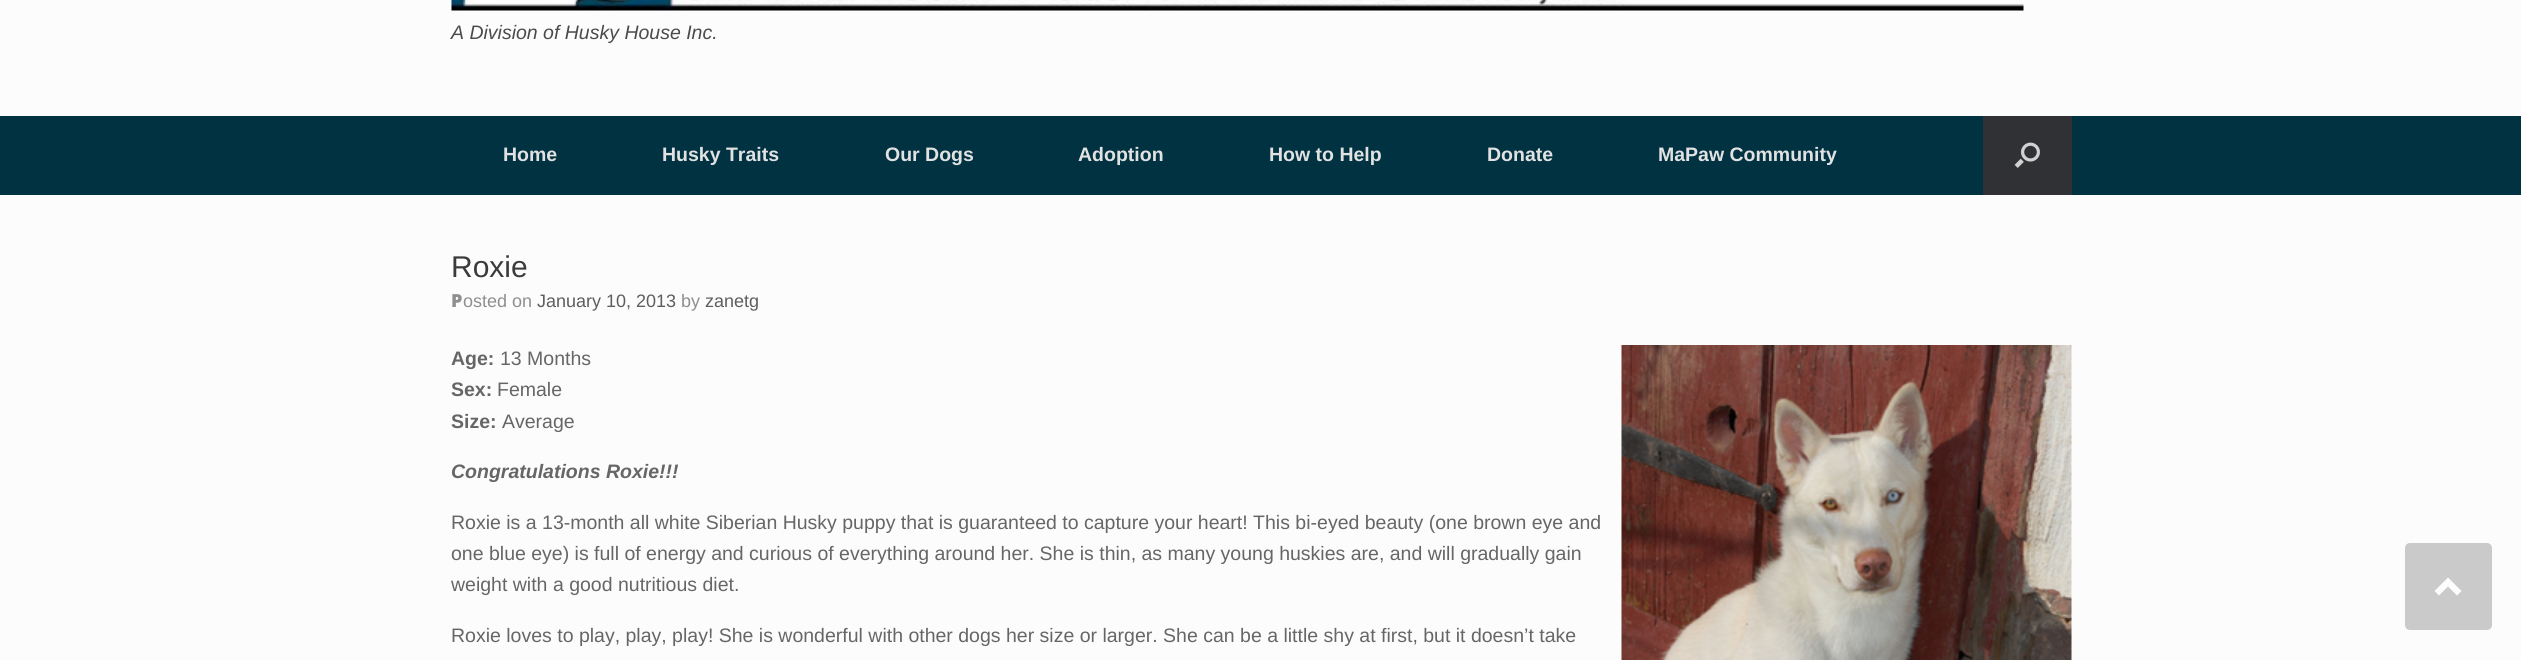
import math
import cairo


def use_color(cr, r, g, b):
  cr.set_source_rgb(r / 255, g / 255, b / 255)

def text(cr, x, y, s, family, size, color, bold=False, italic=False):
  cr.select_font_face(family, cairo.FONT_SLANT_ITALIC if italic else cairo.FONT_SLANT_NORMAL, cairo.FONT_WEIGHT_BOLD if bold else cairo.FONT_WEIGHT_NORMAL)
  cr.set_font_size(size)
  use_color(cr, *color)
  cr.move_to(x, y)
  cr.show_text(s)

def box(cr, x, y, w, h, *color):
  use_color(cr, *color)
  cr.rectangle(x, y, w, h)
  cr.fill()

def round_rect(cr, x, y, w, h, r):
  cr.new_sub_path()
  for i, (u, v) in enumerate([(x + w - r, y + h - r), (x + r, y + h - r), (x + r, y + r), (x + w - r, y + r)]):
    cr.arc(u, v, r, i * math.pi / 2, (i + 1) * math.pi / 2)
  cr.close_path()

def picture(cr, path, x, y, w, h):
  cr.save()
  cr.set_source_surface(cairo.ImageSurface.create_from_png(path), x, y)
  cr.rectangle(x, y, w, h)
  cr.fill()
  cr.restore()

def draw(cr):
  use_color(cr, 252, 252, 252)
  cr.paint()
  picture(cr, "img_01.png", 451, 0, 1573, 11)
  box(cr, 0, 116, 2521, 79, 0, 50, 66)
  box(cr, 1983, 116, 89, 79, 48, 49, 52)
  picture(cr, "img_02.png", 2014, 142, 26, 26)
  picture(cr, "img_03.png", 1621, 345, 451, 315)
  use_color(cr, 202, 202, 202)
  round_rect(cr, 2405, 543, 87, 87, 5)
  cr.fill()
  use_color(cr, 253, 253, 253)
  cr.new_path()
  cr.move_to(2461.5, 591)
  cr.line_to(2448, 577.5)
  cr.line_to(2434.5, 591)
  cr.line_to(2439, 595.5)
  cr.line_to(2448, 586.5)
  cr.line_to(2457, 595.5)
  cr.close_path()
  cr.fill()
  text(cr, 451, 39, "A Division of Husky House Inc.", "Liberation Sans", 19.5, (75, 75, 75), italic=True)
  text(cr, 503, 161, "Home", "Liberation Sans", 19.5, (226, 226, 226), bold=True)
  text(cr, 662, 161, "Husky Traits", "Liberation Sans", 19.5, (226, 226, 226), bold=True)
  text(cr, 885, 161, "Our Dogs", "Liberation Sans", 19.5, (226, 226, 226), bold=True)
  text(cr, 1078, 161, "Adoption", "Liberation Sans", 19.5, (226, 226, 226), bold=True)
  text(cr, 1269, 161, "How to Help", "Liberation Sans", 19.5, (226, 226, 226), bold=True)
  text(cr, 1487, 161, "Donate", "Liberation Sans", 19.5, (226, 226, 226), bold=True)
  text(cr, 1658, 161, "MaPaw Community", "Liberation Sans", 19.5, (226, 226, 226), bold=True)
  text(cr, 451, 277, "Roxie", "Liberation Sans", 30, (59, 59, 59))
  text(cr, 451, 307, "P", "Noto Sans Black", 18, (143, 143, 143))
  text(cr, 463, 307, "osted on", "Liberation Sans", 18, (143, 143, 143))
  text(cr, 537, 307, "January 10, 2013", "Liberation Sans", 18, (94, 94, 94))
  text(cr, 681, 307, "by", "Liberation Sans", 18, (143, 143, 143))
  text(cr, 705, 307, "zanetg", "Liberation Sans", 18, (94, 94, 94))
  text(cr, 451, 365, "Age:", "Liberation Sans", 19.5, (102, 102, 102), bold=True)
  text(cr, 500, 365, "13 Months", "Liberation Sans", 19.5, (102, 102, 102))
  text(cr, 451, 396, "Sex:", "Liberation Sans", 19.5, (102, 102, 102), bold=True)
  text(cr, 497, 396, "Female", "Liberation Sans", 19.5, (102, 102, 102))
  text(cr, 451, 428, "Size:", "Liberation Sans", 19.5, (102, 102, 102), bold=True)
  text(cr, 502, 428, "Average", "Liberation Sans", 19.5, (102, 102, 102))
  text(cr, 451, 478, "Congratulations Roxie!!!", "Liberation Sans", 19.5, (102, 102, 102), bold=True, italic=True)
  text(cr, 451, 529, "Roxie is a 13-month all white Siberian Husky puppy that is guaranteed to capture your heart! This bi-eyed beauty (one brown eye and", "Liberation Sans", 19.5, (102, 102, 102))
  text(cr, 451, 560, "one blue eye) is full of energy and curious of everything around her. She is thin, as many young huskies are, and will gradually gain", "Liberation Sans", 19.5, (102, 102, 102))
  text(cr, 451, 591, "weight with a good nutritious diet.", "Liberation Sans", 19.5, (102, 102, 102))
  text(cr, 451, 642, "Roxie loves to play, play, play! She is wonderful with other dogs her size or larger. She can be a little shy at first, but it doesn’t take", "Liberation Sans", 19.5, (102, 102, 102))


surface = cairo.ImageSurface(cairo.FORMAT_RGB24, 2521, 660)
cr = cairo.Context(surface)
options = cairo.FontOptions()
options.set_hint_metrics(cairo.HINT_METRICS_OFF)
options.set_hint_style(cairo.HINT_STYLE_NONE)
cr.set_font_options(options)
cr.set_miter_limit(4)
draw(cr)
surface.write_to_png("out.png")
